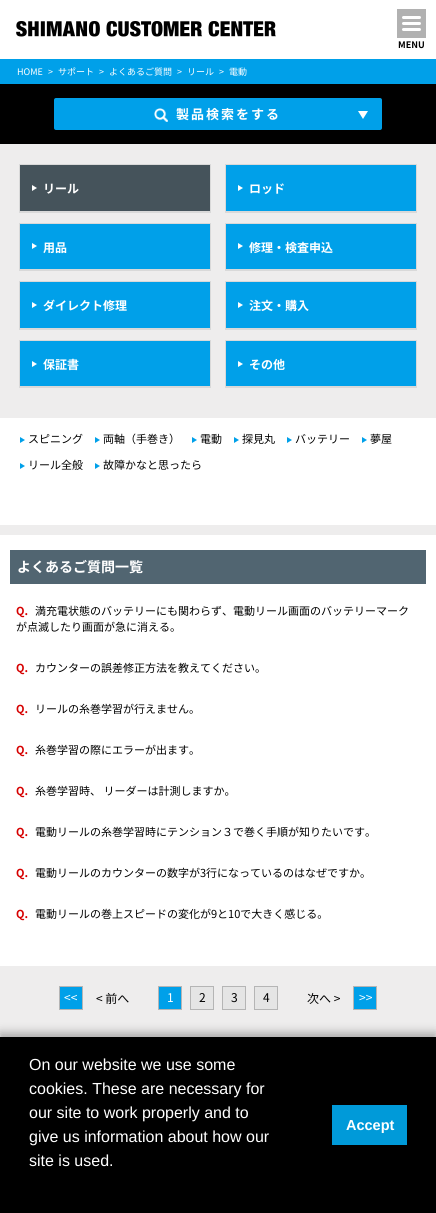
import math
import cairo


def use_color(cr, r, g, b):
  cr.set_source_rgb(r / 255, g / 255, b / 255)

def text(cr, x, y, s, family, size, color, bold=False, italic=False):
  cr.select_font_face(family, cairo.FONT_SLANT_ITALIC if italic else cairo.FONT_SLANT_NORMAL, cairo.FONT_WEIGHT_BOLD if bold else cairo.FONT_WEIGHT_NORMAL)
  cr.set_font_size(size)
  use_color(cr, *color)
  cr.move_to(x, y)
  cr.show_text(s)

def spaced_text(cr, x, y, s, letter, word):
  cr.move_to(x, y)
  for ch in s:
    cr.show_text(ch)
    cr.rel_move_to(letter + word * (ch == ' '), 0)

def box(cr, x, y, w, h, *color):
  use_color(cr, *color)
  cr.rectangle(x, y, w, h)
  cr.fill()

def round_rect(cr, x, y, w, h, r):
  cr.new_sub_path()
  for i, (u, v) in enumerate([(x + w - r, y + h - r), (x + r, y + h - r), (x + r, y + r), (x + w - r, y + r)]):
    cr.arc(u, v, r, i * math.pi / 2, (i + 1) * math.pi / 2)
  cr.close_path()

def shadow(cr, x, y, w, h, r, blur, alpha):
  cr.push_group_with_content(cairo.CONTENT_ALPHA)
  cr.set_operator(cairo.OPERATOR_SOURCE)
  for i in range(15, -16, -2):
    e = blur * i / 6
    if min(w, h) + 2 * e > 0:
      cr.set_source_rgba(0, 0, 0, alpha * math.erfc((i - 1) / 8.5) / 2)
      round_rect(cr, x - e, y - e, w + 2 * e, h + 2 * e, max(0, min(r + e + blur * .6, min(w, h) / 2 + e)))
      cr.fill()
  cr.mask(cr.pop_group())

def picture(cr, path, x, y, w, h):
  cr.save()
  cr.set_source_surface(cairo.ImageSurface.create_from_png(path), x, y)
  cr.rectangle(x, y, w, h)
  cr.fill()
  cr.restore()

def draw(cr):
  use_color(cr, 255, 255, 255)
  cr.paint()
  picture(cr, "img_01.png", 16, 21, 260, 16)
  box(cr, 397, 9, 29, 29, 177, 177, 177)
  use_color(cr, 255, 255, 255)
  round_rect(cr, 402, 16, 19, 3, 1.5)
  cr.fill()
  round_rect(cr, 402, 22, 19, 3, 1.5)
  cr.fill()
  round_rect(cr, 402, 28, 19, 3, 1.5)
  cr.fill()
  box(cr, 0, 59, 436, 25, 0, 160, 233)
  box(cr, 0, 84, 436, 60, 0, 0, 0)
  use_color(cr, 0, 160, 233)
  round_rect(cr, 54, 98, 328, 32, 2)
  cr.fill()
  picture(cr, "img_02.png", 154, 108, 14, 14)
  use_color(cr, 255, 255, 255)
  cr.new_path()
  cr.move_to(358, 111)
  cr.line_to(368, 111)
  cr.line_to(363, 119)
  cr.close_path()
  cr.fill()
  box(cr, 0, 144, 436, 391, 238, 237, 237)
  box(cr, 20, 165, 190, 46, 69, 83, 91)
  box(cr, 19, 164, 192, 1, 217, 217, 217)
  box(cr, 210, 164, 1, 49, 217, 217, 217)
  box(cr, 19, 211, 192, 2, 217, 217, 217)
  box(cr, 19, 164, 1, 49, 217, 217, 217)
  use_color(cr, 255, 255, 255)
  cr.new_path()
  cr.move_to(32, 191)
  cr.line_to(32, 185)
  cr.line_to(37, 188)
  cr.close_path()
  cr.fill()
  box(cr, 226, 165, 190, 46, 0, 160, 233)
  box(cr, 225, 164, 192, 1, 217, 217, 217)
  box(cr, 416, 164, 1, 49, 217, 217, 217)
  box(cr, 225, 211, 192, 2, 217, 217, 217)
  box(cr, 225, 164, 1, 49, 217, 217, 217)
  use_color(cr, 255, 255, 255)
  cr.new_path()
  cr.move_to(238, 191)
  cr.line_to(238, 185)
  cr.line_to(243, 188)
  cr.close_path()
  cr.fill()
  box(cr, 20, 224, 190, 45, 0, 160, 233)
  box(cr, 19, 223, 192, 1, 217, 217, 217)
  box(cr, 210, 223, 1, 48, 217, 217, 217)
  box(cr, 19, 269, 192, 2, 217, 217, 217)
  box(cr, 19, 223, 1, 48, 217, 217, 217)
  use_color(cr, 255, 255, 255)
  cr.new_path()
  cr.move_to(32, 249)
  cr.line_to(32, 243)
  cr.line_to(37, 246)
  cr.close_path()
  cr.fill()
  box(cr, 226, 224, 190, 45, 0, 160, 233)
  box(cr, 225, 223, 192, 1, 217, 217, 217)
  box(cr, 416, 223, 1, 48, 217, 217, 217)
  box(cr, 225, 269, 192, 2, 217, 217, 217)
  box(cr, 225, 223, 1, 48, 217, 217, 217)
  use_color(cr, 255, 255, 255)
  cr.new_path()
  cr.move_to(238, 249)
  cr.line_to(238, 243)
  cr.line_to(243, 246)
  cr.close_path()
  cr.fill()
  box(cr, 20, 282, 190, 46, 0, 160, 233)
  box(cr, 19, 281, 192, 1, 217, 217, 217)
  box(cr, 210, 281, 1, 49, 217, 217, 217)
  box(cr, 19, 328, 192, 2, 217, 217, 217)
  box(cr, 19, 281, 1, 49, 217, 217, 217)
  use_color(cr, 255, 255, 255)
  cr.new_path()
  cr.move_to(32, 308)
  cr.line_to(32, 302)
  cr.line_to(37, 305)
  cr.close_path()
  cr.fill()
  box(cr, 226, 282, 190, 46, 0, 160, 233)
  box(cr, 225, 281, 192, 1, 217, 217, 217)
  box(cr, 416, 281, 1, 49, 217, 217, 217)
  box(cr, 225, 328, 192, 2, 217, 217, 217)
  box(cr, 225, 281, 1, 49, 217, 217, 217)
  use_color(cr, 255, 255, 255)
  cr.new_path()
  cr.move_to(238, 308)
  cr.line_to(238, 302)
  cr.line_to(243, 305)
  cr.close_path()
  cr.fill()
  box(cr, 20, 341, 190, 45, 0, 160, 233)
  box(cr, 19, 340, 192, 1, 217, 217, 217)
  box(cr, 210, 340, 1, 48, 217, 217, 217)
  box(cr, 19, 386, 192, 2, 217, 217, 217)
  box(cr, 19, 340, 1, 48, 217, 217, 217)
  use_color(cr, 255, 255, 255)
  cr.new_path()
  cr.move_to(32, 367)
  cr.line_to(32, 361)
  cr.line_to(37, 364)
  cr.close_path()
  cr.fill()
  box(cr, 226, 341, 190, 45, 0, 160, 233)
  box(cr, 225, 340, 192, 1, 217, 217, 217)
  box(cr, 416, 340, 1, 48, 217, 217, 217)
  box(cr, 225, 386, 192, 2, 217, 217, 217)
  box(cr, 225, 340, 1, 48, 217, 217, 217)
  use_color(cr, 255, 255, 255)
  cr.new_path()
  cr.move_to(238, 367)
  cr.line_to(238, 361)
  cr.line_to(243, 364)
  cr.close_path()
  cr.fill()
  box(cr, 0, 418, 436, 107, 255, 255, 255)
  use_color(cr, 0, 160, 233)
  cr.new_path()
  cr.move_to(20, 443)
  cr.line_to(20, 437)
  cr.line_to(25, 440)
  cr.close_path()
  cr.fill()
  cr.new_path()
  cr.move_to(95, 443)
  cr.line_to(95, 437)
  cr.line_to(100, 440)
  cr.close_path()
  cr.fill()
  cr.new_path()
  cr.move_to(192, 443)
  cr.line_to(192, 437)
  cr.line_to(197, 440)
  cr.close_path()
  cr.fill()
  cr.new_path()
  cr.move_to(234, 443)
  cr.line_to(234, 437)
  cr.line_to(239, 440)
  cr.close_path()
  cr.fill()
  cr.new_path()
  cr.move_to(287, 443)
  cr.line_to(287, 437)
  cr.line_to(292, 440)
  cr.close_path()
  cr.fill()
  cr.new_path()
  cr.move_to(362, 443)
  cr.line_to(362, 437)
  cr.line_to(367, 440)
  cr.close_path()
  cr.fill()
  cr.new_path()
  cr.move_to(20, 469)
  cr.line_to(20, 463)
  cr.line_to(25, 466)
  cr.close_path()
  cr.fill()
  cr.new_path()
  cr.move_to(95, 469)
  cr.line_to(95, 463)
  cr.line_to(100, 466)
  cr.close_path()
  cr.fill()
  box(cr, 0, 966, 436, 71, 238, 237, 237)
  box(cr, 10, 550, 416, 34, 81, 101, 113)
  use_color(cr, 0, 160, 233)
  cr.rectangle(59.5, 986.5, 23, 23)
  cr.fill_preserve()
  use_color(cr, 181, 181, 181)
  cr.set_line_width(1)
  cr.stroke()
  use_color(cr, 0, 160, 233)
  cr.rectangle(158.5, 986.5, 23, 23)
  cr.fill_preserve()
  use_color(cr, 181, 181, 181)
  cr.stroke()
  use_color(cr, 229, 229, 229)
  cr.rectangle(190.5, 986.5, 23, 23)
  cr.fill_preserve()
  use_color(cr, 181, 181, 181)
  cr.stroke()
  use_color(cr, 229, 229, 229)
  cr.rectangle(222.5, 986.5, 23, 23)
  cr.fill_preserve()
  use_color(cr, 181, 181, 181)
  cr.stroke()
  use_color(cr, 229, 229, 229)
  cr.rectangle(254.5, 986.5, 23, 23)
  cr.fill_preserve()
  use_color(cr, 181, 181, 181)
  cr.stroke()
  use_color(cr, 0, 160, 233)
  cr.rectangle(353.5, 986.5, 23, 23)
  cr.fill_preserve()
  use_color(cr, 181, 181, 181)
  cr.stroke()
  use_color(cr, 0, 0, 0)
  shadow(cr, 0, 1033, 436, 176, 0, 5, 0.3)
  box(cr, 0, 1037, 436, 176, 0, 0, 0)
  box(cr, 332, 1105, 75, 40, 0, 154, 217)
  text(cr, 398, 48, "MENU", "Noto Sans JP", 9, (0, 0, 0), bold=True)
  text(cr, 17, 75, "HOME", "Noto Sans JP", 9, (255, 255, 255))
  text(cr, 48, 75, ">", "Noto Sans JP", 9, (255, 255, 255))
  text(cr, 58, 75, "サポート", "Noto Sans JP", 9, (255, 255, 255))
  text(cr, 99, 75, ">", "Noto Sans JP", 9, (255, 255, 255))
  text(cr, 109, 75, "よくあるご質問", "Noto Sans JP", 9, (255, 255, 255))
  text(cr, 177, 75, ">", "Noto Sans JP", 9, (255, 255, 255))
  text(cr, 187, 75, "リール", "Noto Sans JP", 9, (255, 255, 255))
  text(cr, 219, 75, ">", "Noto Sans JP", 9, (255, 255, 255))
  text(cr, 229, 75, "電動", "Noto Sans JP", 9, (255, 255, 255))
  cr.select_font_face("Noto Sans JP", cairo.FONT_SLANT_NORMAL, cairo.FONT_WEIGHT_BOLD)
  cr.set_font_size(13)
  spaced_text(cr, 176, 119, "製品検索をする", 2, 0)
  text(cr, 43, 193, "リール", "Noto Sans JP", 12, (255, 255, 255), bold=True)
  text(cr, 249, 193, "ロッド", "Noto Sans JP", 12, (255, 255, 255), bold=True)
  text(cr, 43, 252, "用品", "Noto Sans JP", 12, (255, 255, 255), bold=True)
  text(cr, 249, 252, "修理・検査申込", "Noto Sans JP", 12, (255, 255, 255), bold=True)
  text(cr, 43, 310, "ダイレクト修理", "Noto Sans JP", 12, (255, 255, 255), bold=True)
  text(cr, 249, 310, "注文・購入", "Noto Sans JP", 12, (255, 255, 255), bold=True)
  text(cr, 43, 369, "保証書", "Noto Sans JP", 12, (255, 255, 255), bold=True)
  text(cr, 249, 369, "その他", "Noto Sans JP", 12, (255, 255, 255), bold=True)
  text(cr, 28, 443, "スピニング", "Noto Sans JP", 11, (0, 0, 0))
  text(cr, 103, 443, "両軸（手巻き）", "Noto Sans JP", 11, (0, 0, 0))
  text(cr, 200, 443, "電動", "Noto Sans JP", 11, (0, 0, 0))
  text(cr, 242, 443, "探見丸", "Noto Sans JP", 11, (0, 0, 0))
  text(cr, 295, 443, "バッテリー", "Noto Sans JP", 11, (0, 0, 0))
  text(cr, 370, 443, "夢屋", "Noto Sans JP", 11, (0, 0, 0))
  text(cr, 28, 469, "リール全般", "Noto Sans JP", 11, (0, 0, 0))
  text(cr, 103, 469, "故障かなと思ったら", "Noto Sans JP", 11, (0, 0, 0))
  text(cr, 17, 572, "よくあるご質問一覧", "Noto Sans JP", 14, (255, 255, 255), bold=True)
  text(cr, 16, 615, "Q.", "Noto Sans JP", 11, (214, 0, 0), bold=True)
  text(cr, 35, 615, "満充電状態のバッテリーにも関わらず、電動リール画面のバッテリーマーク", "Noto Sans JP", 11, (0, 0, 0))
  text(cr, 16, 631, "が点滅したり画面が急に消える。", "Noto Sans JP", 11, (0, 0, 0))
  text(cr, 16, 672, "Q.", "Noto Sans JP", 11, (214, 0, 0), bold=True)
  text(cr, 35, 672, "カウンターの誤差修正方法を教えてください。", "Noto Sans JP", 11, (0, 0, 0))
  text(cr, 16, 713, "Q.", "Noto Sans JP", 11, (214, 0, 0), bold=True)
  text(cr, 35, 713, "リールの糸巻学習が行えません。", "Noto Sans JP", 11, (0, 0, 0))
  text(cr, 16, 754, "Q.", "Noto Sans JP", 11, (214, 0, 0), bold=True)
  text(cr, 35, 754, "糸巻学習の際にエラーが出ます。", "Noto Sans JP", 11, (0, 0, 0))
  text(cr, 16, 795, "Q.", "Noto Sans JP", 11, (214, 0, 0), bold=True)
  text(cr, 35, 795, "糸巻学習時、 リーダーは計測しますか。", "Noto Sans JP", 11, (0, 0, 0))
  text(cr, 16, 836, "Q.", "Noto Sans JP", 11, (214, 0, 0), bold=True)
  text(cr, 35, 836, "電動リールの糸巻学習時にテンション３で巻く手順が知りたいです。", "Noto Sans JP", 11, (0, 0, 0))
  text(cr, 16, 877, "Q.", "Noto Sans JP", 11, (214, 0, 0), bold=True)
  text(cr, 35, 877, "電動リールのカウンターの数字が3行になっているのはなぜですか。", "Noto Sans JP", 11, (0, 0, 0))
  text(cr, 16, 918, "Q.", "Noto Sans JP", 11, (214, 0, 0), bold=True)
  text(cr, 35, 918, "電動リールの巻上スピードの変化が9と10で大きく感じる。", "Noto Sans JP", 11, (0, 0, 0))
  text(cr, 64, 1002, "<<", "Noto Sans JP", 12, (255, 255, 255))
  text(cr, 96, 1003, "< 前へ", "Noto Sans JP", 12, (0, 0, 0))
  text(cr, 167, 1002, "1", "Noto Sans JP", 12, (255, 255, 255))
  text(cr, 199, 1002, "2", "Noto Sans JP", 12, (0, 0, 0))
  text(cr, 231, 1002, "3", "Noto Sans JP", 12, (0, 0, 0))
  text(cr, 263, 1002, "4", "Noto Sans JP", 12, (0, 0, 0))
  text(cr, 307, 1003, "次へ >", "Noto Sans JP", 12, (0, 0, 0))
  text(cr, 359, 1002, ">>", "Noto Sans JP", 12, (255, 255, 255))
  text(cr, 29, 1070, "On our website we use some", "Liberation Sans", 16, (255, 255, 255))
  text(cr, 29, 1094, "cookies. These are necessary for", "Liberation Sans", 16, (255, 255, 255))
  text(cr, 29, 1118, "our site to work properly and to", "Liberation Sans", 16, (255, 255, 255))
  text(cr, 29, 1142, "give us information about how our", "Liberation Sans", 16, (255, 255, 255))
  text(cr, 29, 1166, "site is used.", "Liberation Sans", 16, (255, 255, 255))
  text(cr, 346, 1130, "Accept", "Liberation Sans", 14.5, (255, 255, 255), bold=True)


surface = cairo.ImageSurface(cairo.FORMAT_RGB24, 436, 1213)
cr = cairo.Context(surface)
options = cairo.FontOptions()
options.set_hint_metrics(cairo.HINT_METRICS_OFF)
options.set_hint_style(cairo.HINT_STYLE_NONE)
cr.set_font_options(options)
cr.set_miter_limit(4)
draw(cr)
surface.write_to_png("out.png")
